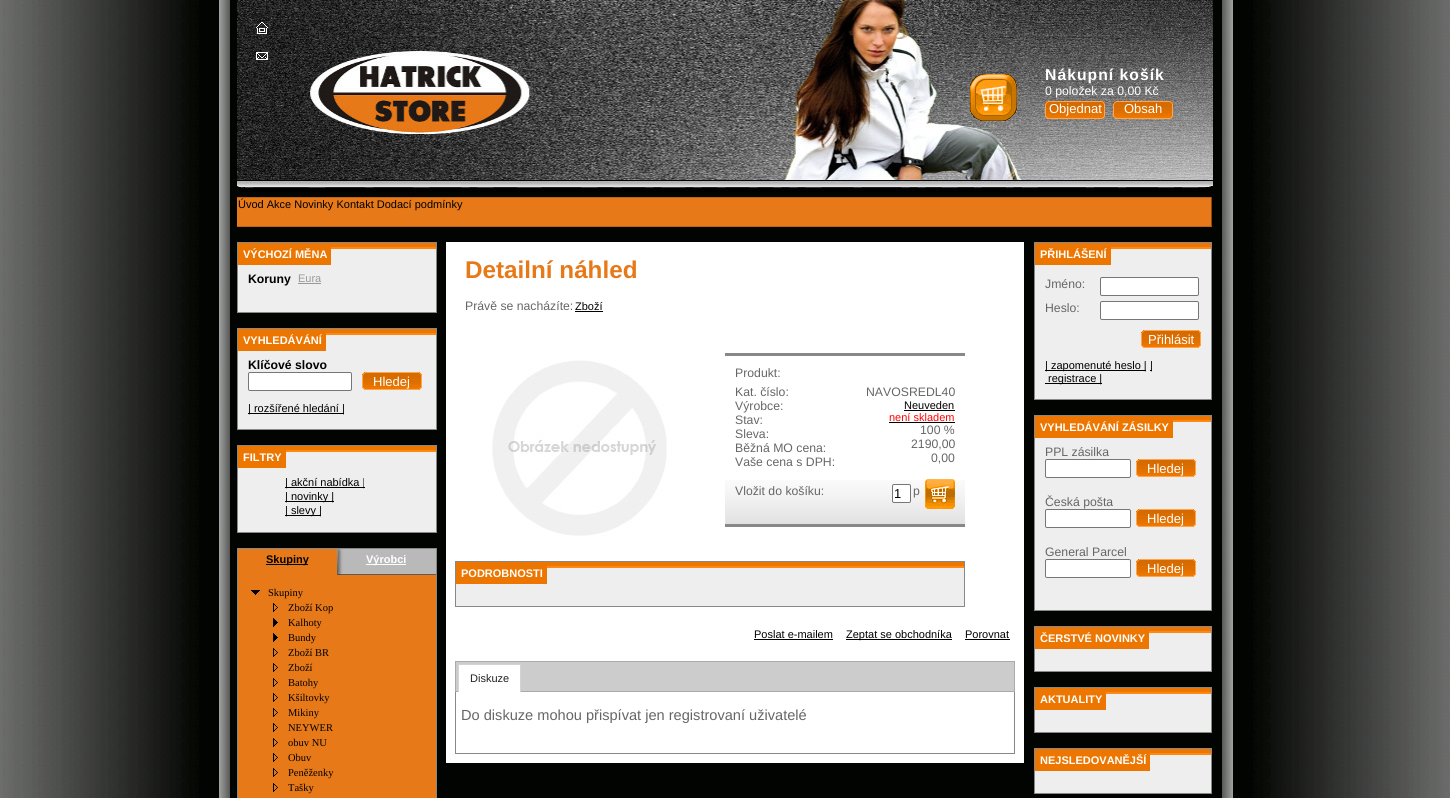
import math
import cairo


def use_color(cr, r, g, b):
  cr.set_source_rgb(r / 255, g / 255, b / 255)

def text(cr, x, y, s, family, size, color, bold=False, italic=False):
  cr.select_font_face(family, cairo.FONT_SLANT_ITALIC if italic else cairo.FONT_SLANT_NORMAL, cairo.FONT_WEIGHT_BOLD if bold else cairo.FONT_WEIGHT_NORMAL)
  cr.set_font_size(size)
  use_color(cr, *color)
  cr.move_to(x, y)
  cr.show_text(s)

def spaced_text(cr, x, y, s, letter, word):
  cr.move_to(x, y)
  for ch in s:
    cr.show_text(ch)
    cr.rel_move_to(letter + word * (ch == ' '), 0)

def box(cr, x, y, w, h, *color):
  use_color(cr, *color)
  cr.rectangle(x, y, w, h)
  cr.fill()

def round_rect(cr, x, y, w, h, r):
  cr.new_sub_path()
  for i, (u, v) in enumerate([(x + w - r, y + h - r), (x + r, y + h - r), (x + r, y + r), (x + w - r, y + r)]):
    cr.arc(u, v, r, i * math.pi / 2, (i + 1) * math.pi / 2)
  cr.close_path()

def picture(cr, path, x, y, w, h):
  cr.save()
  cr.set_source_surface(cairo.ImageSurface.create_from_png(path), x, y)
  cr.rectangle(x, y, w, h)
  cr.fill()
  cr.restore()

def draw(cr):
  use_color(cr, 255, 255, 255)
  cr.paint()
  picture(cr, "img_01.png", 0, 0, 1450, 798)
  picture(cr, "img_02.png", 237, 0, 976, 192)
  picture(cr, "img_03.png", 256, 22, 12, 12)
  picture(cr, "img_04.png", 256, 52, 12, 8)
  picture(cr, "img_05.png", 970, 74, 47, 47)
  picture(cr, "img_06.png", 1045, 101, 60, 18)
  picture(cr, "img_07.png", 1113, 101, 60, 18)
  box(cr, 237, 198, 974, 28, 231, 121, 24)
  box(cr, 237, 197, 975, 1, 190, 98, 21)
  box(cr, 1211, 197, 1, 30, 141, 72, 16)
  box(cr, 237, 226, 975, 1, 190, 98, 21)
  box(cr, 238, 249, 198, 63, 238, 238, 238)
  picture(cr, "img_08.png", 238, 243, 198, 6)
  cr.rectangle(237.5, 242.5, 199, 70)
  use_color(cr, 136, 136, 136)
  cr.set_line_width(1)
  cr.stroke()
  box(cr, 238, 247, 93, 18, 236, 118, 0)
  box(cr, 298, 283, 23, 1, 153, 153, 153)
  box(cr, 238, 335, 198, 94, 238, 238, 238)
  picture(cr, "img_08.png", 238, 329, 198, 6)
  cr.rectangle(237.5, 328.5, 199, 101)
  use_color(cr, 136, 136, 136)
  cr.stroke()
  box(cr, 238, 333, 88, 18, 236, 118, 0)
  use_color(cr, 255, 255, 255)
  round_rect(cr, 248.5, 372.5, 103, 18, 1.5)
  cr.fill_preserve()
  use_color(cr, 118, 118, 118)
  cr.stroke()
  picture(cr, "img_09.png", 362, 372, 60, 18)
  box(cr, 248, 413, 96, 1, 0, 0, 0)
  box(cr, 238, 452, 198, 80, 238, 238, 238)
  picture(cr, "img_08.png", 238, 446, 198, 6)
  cr.rectangle(237.5, 445.5, 199, 87)
  use_color(cr, 136, 136, 136)
  cr.stroke()
  box(cr, 238, 450, 48, 18, 236, 118, 0)
  box(cr, 285, 487, 80, 1, 0, 0, 0)
  box(cr, 285, 501, 49, 1, 0, 0, 0)
  box(cr, 285, 515, 36, 1, 0, 0, 0)
  cr.rectangle(237.5, 548.5, 199, 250)
  use_color(cr, 136, 136, 136)
  cr.stroke()
  picture(cr, "img_10.png", 238, 549, 198, 26)
  box(cr, 266, 564, 42, 1, 0, 0, 0)
  box(cr, 366, 564, 40, 1, 255, 255, 255)
  box(cr, 238, 575, 198, 223, 231, 121, 24)
  picture(cr, "img_11.png", 251, 590, 9, 5)
  picture(cr, "img_12.png", 273, 603, 5, 9)
  picture(cr, "img_13.png", 273, 618, 5, 9)
  picture(cr, "img_13.png", 273, 633, 5, 9)
  picture(cr, "img_12.png", 273, 648, 5, 9)
  picture(cr, "img_12.png", 273, 663, 5, 9)
  picture(cr, "img_12.png", 273, 678, 5, 9)
  picture(cr, "img_12.png", 273, 693, 5, 9)
  picture(cr, "img_12.png", 273, 708, 5, 9)
  picture(cr, "img_12.png", 273, 723, 5, 9)
  picture(cr, "img_12.png", 273, 738, 5, 9)
  picture(cr, "img_12.png", 273, 753, 5, 9)
  picture(cr, "img_12.png", 273, 768, 5, 9)
  picture(cr, "img_12.png", 273, 783, 5, 9)
  box(cr, 446, 242, 578, 521, 255, 255, 255)
  box(cr, 575, 311, 28, 1, 0, 0, 0)
  picture(cr, "img_14.png", 492, 360, 175, 176)
  picture(cr, "img_15.png", 725, 480, 240, 44)
  box(cr, 725, 353, 240, 3, 136, 136, 136)
  box(cr, 725, 524, 240, 3, 136, 136, 136)
  box(cr, 904, 410, 51, 1, 0, 0, 0)
  box(cr, 889, 422, 66, 1, 0, 0, 0)
  use_color(cr, 255, 255, 255)
  round_rect(cr, 892.5, 484.5, 18, 18, 1.5)
  cr.fill_preserve()
  use_color(cr, 118, 118, 118)
  cr.stroke()
  picture(cr, "img_16.png", 925, 479, 30, 30)
  box(cr, 456, 568, 508, 38, 238, 238, 238)
  picture(cr, "img_17.png", 456, 562, 508, 6)
  cr.rectangle(455.5, 561.5, 509, 45)
  use_color(cr, 136, 136, 136)
  cr.stroke()
  box(cr, 456, 566, 91, 18, 236, 118, 0)
  box(cr, 754, 639, 79, 1, 0, 0, 0)
  box(cr, 846, 639, 106, 1, 0, 0, 0)
  box(cr, 965, 639, 45, 1, 0, 0, 0)
  use_color(cr, 204, 204, 204)
  cr.rectangle(455.5, 661.5, 559, 30)
  cr.fill_preserve()
  use_color(cr, 170, 170, 170)
  cr.stroke()
  box(cr, 459, 665, 61, 27, 255, 255, 255)
  box(cr, 458, 664, 63, 1, 211, 211, 211)
  box(cr, 520, 664, 1, 28, 211, 211, 211)
  box(cr, 458, 664, 1, 28, 211, 211, 211)
  box(cr, 1014, 692, 1, 62, 136, 136, 136)
  box(cr, 455, 753, 560, 1, 136, 136, 136)
  box(cr, 455, 692, 1, 62, 136, 136, 136)
  box(cr, 1035, 249, 176, 150, 238, 238, 238)
  picture(cr, "img_18.png", 1035, 243, 176, 6)
  cr.rectangle(1034.5, 242.5, 177, 157)
  use_color(cr, 136, 136, 136)
  cr.stroke()
  box(cr, 1035, 247, 76, 18, 236, 118, 0)
  use_color(cr, 255, 255, 255)
  round_rect(cr, 1100.5, 277.5, 98, 18, 1.5)
  cr.fill_preserve()
  use_color(cr, 118, 118, 118)
  cr.stroke()
  use_color(cr, 255, 255, 255)
  round_rect(cr, 1100.5, 301.5, 98, 18, 1.5)
  cr.fill_preserve()
  use_color(cr, 118, 118, 118)
  cr.stroke()
  picture(cr, "img_09.png", 1141, 330, 60, 18)
  box(cr, 1045, 370, 101, 1, 0, 0, 0)
  box(cr, 1150, 370, 2, 1, 0, 0, 0)
  box(cr, 1045, 383, 57, 1, 0, 0, 0)
  box(cr, 1035, 422, 176, 188, 238, 238, 238)
  picture(cr, "img_18.png", 1035, 416, 176, 6)
  cr.rectangle(1034.5, 415.5, 177, 195)
  use_color(cr, 136, 136, 136)
  cr.stroke()
  box(cr, 1035, 420, 138, 18, 236, 118, 0)
  use_color(cr, 255, 255, 255)
  round_rect(cr, 1045.5, 459.5, 85, 18, 1.5)
  cr.fill_preserve()
  use_color(cr, 118, 118, 118)
  cr.stroke()
  picture(cr, "img_09.png", 1136, 459, 60, 18)
  use_color(cr, 255, 255, 255)
  round_rect(cr, 1045.5, 509.5, 85, 18, 1.5)
  cr.fill_preserve()
  use_color(cr, 118, 118, 118)
  cr.stroke()
  picture(cr, "img_09.png", 1136, 509, 60, 18)
  use_color(cr, 255, 255, 255)
  round_rect(cr, 1045.5, 559.5, 85, 18, 1.5)
  cr.fill_preserve()
  use_color(cr, 118, 118, 118)
  cr.stroke()
  picture(cr, "img_09.png", 1136, 559, 60, 18)
  box(cr, 1035, 633, 176, 38, 238, 238, 238)
  picture(cr, "img_18.png", 1035, 627, 176, 6)
  cr.rectangle(1034.5, 626.5, 177, 45)
  use_color(cr, 136, 136, 136)
  cr.stroke()
  box(cr, 1035, 631, 114, 18, 236, 118, 0)
  box(cr, 1035, 694, 176, 38, 238, 238, 238)
  picture(cr, "img_18.png", 1035, 688, 176, 6)
  cr.rectangle(1034.5, 687.5, 177, 45)
  use_color(cr, 136, 136, 136)
  cr.stroke()
  box(cr, 1035, 692, 71, 18, 236, 118, 0)
  box(cr, 1035, 755, 176, 38, 238, 238, 238)
  picture(cr, "img_18.png", 1035, 749, 176, 6)
  cr.rectangle(1034.5, 748.5, 177, 45)
  use_color(cr, 136, 136, 136)
  cr.stroke()
  box(cr, 1035, 753, 115, 18, 236, 118, 0)
  cr.select_font_face("Liberation Sans", cairo.FONT_SLANT_NORMAL, cairo.FONT_WEIGHT_BOLD)
  cr.set_font_size(15.75)
  use_color(cr, 255, 255, 255)
  spaced_text(cr, 1045, 80, "Nákupní košík", 1, 0)
  text(cr, 1045, 95, "0 položek za 0,00 Kč", "Liberation Sans", 12.25, (255, 255, 255))
  text(cr, 1049, 113, "Objednat", "Liberation Sans", 13, (255, 255, 255))
  text(cr, 1124, 113, "Obsah", "Liberation Sans", 13, (255, 255, 255))
  text(cr, 238, 208, "Úvod Akce Novinky Kontakt Dodací podmínky", "Liberation Sans", 11, (0, 0, 0))
  text(cr, 243, 258, "VÝCHOZÍ MĚNA", "Liberation Sans", 11, (255, 255, 255), bold=True)
  text(cr, 248, 283, "Koruny", "Liberation Sans", 12.25, (0, 0, 0), bold=True)
  text(cr, 298, 282, "Eura", "Liberation Sans", 11, (153, 153, 153))
  text(cr, 243, 344, "VYHLEDÁVÁNÍ", "Liberation Sans", 11, (255, 255, 255), bold=True)
  text(cr, 248, 369, "Klíčové slovo", "Liberation Sans", 12.25, (0, 0, 0), bold=True)
  text(cr, 373, 386, "Hledej", "Liberation Sans", 13, (255, 255, 255))
  text(cr, 248, 412, "| rozšířené hledání |", "Liberation Sans", 11, (0, 0, 0))
  text(cr, 243, 461, "FILTRY", "Liberation Sans", 11, (255, 255, 255), bold=True)
  text(cr, 285, 486, "| akční nabídka |", "Liberation Sans", 11, (0, 0, 0))
  text(cr, 285, 500, "| novinky |", "Liberation Sans", 11, (0, 0, 0))
  text(cr, 285, 514, "| slevy |", "Liberation Sans", 11, (0, 0, 0))
  text(cr, 266, 563, "Skupiny", "Liberation Sans", 11, (0, 0, 0), bold=True)
  text(cr, 366, 563, "Výrobci", "Liberation Sans", 11, (255, 255, 255), bold=True)
  text(cr, 268, 596, "Skupiny", "Liberation Serif", 10.5, (0, 0, 0))
  text(cr, 288, 611, "Zboží Kop", "Liberation Serif", 10.5, (0, 0, 0))
  text(cr, 288, 626, "Kalhoty", "Liberation Serif", 10.5, (0, 0, 0))
  text(cr, 288, 641, "Bundy", "Liberation Serif", 10.5, (0, 0, 0))
  text(cr, 288, 656, "Zboží BR", "Liberation Serif", 10.5, (0, 0, 0))
  text(cr, 288, 671, "Zboží", "Liberation Serif", 10.5, (0, 0, 0))
  text(cr, 288, 686, "Batohy", "Liberation Serif", 10.5, (0, 0, 0))
  text(cr, 288, 701, "Kšiltovky", "Liberation Serif", 10.5, (0, 0, 0))
  text(cr, 288, 716, "Mikiny", "Liberation Serif", 10.5, (0, 0, 0))
  text(cr, 288, 731, "NEYWER", "Liberation Serif", 10.5, (0, 0, 0))
  text(cr, 288, 746, "obuv NU", "Liberation Serif", 10.5, (0, 0, 0))
  text(cr, 288, 761, "Obuv", "Liberation Serif", 10.5, (0, 0, 0))
  text(cr, 288, 776, "Peněženky", "Liberation Serif", 10.5, (0, 0, 0))
  text(cr, 288, 791, "Tašky", "Liberation Serif", 10.5, (0, 0, 0))
  text(cr, 465, 278, "Detailní náhled", "Liberation Sans", 24.25, (231, 121, 24), bold=True)
  text(cr, 465, 310, "Právě se nacházíte:", "Liberation Sans", 12.25, (102, 102, 102))
  text(cr, 575, 310, "Zboží", "Liberation Sans", 11, (0, 0, 0))
  text(cr, 735, 377, "Produkt:", "Liberation Sans", 12.25, (102, 102, 102))
  text(cr, 735, 396, "Kat. číslo:", "Liberation Sans", 12.25, (102, 102, 102))
  text(cr, 735, 410, "Výrobce:", "Liberation Sans", 12.25, (102, 102, 102))
  text(cr, 735, 424, "Stav:", "Liberation Sans", 12.25, (102, 102, 102))
  text(cr, 735, 438, "Sleva:", "Liberation Sans", 12.25, (102, 102, 102))
  text(cr, 735, 452, "Běžná MO cena:", "Liberation Sans", 12.25, (102, 102, 102))
  text(cr, 735, 466, "Vaše cena s DPH:", "Liberation Sans", 12.25, (102, 102, 102))
  text(cr, 866, 396, "NAVOSREDL40", "Liberation Sans", 12.25, (102, 102, 102))
  text(cr, 904, 409, "Neuveden", "Liberation Sans", 11, (0, 0, 0))
  text(cr, 889, 421, "není skladem", "Liberation Sans", 11, (255, 0, 0))
  text(cr, 920, 434, "100 %", "Liberation Sans", 12.25, (102, 102, 102))
  text(cr, 911, 448, "2190,00", "Liberation Sans", 12.25, (102, 102, 102))
  text(cr, 931, 462, "0,00", "Liberation Sans", 12.25, (102, 102, 102))
  text(cr, 735, 495, "Vložit do košíku:", "Liberation Sans", 12.25, (102, 102, 102))
  text(cr, 894, 498, "1", "Liberation Sans", 13, (0, 0, 0))
  text(cr, 913, 495, "p", "Liberation Sans", 12.25, (102, 102, 102))
  text(cr, 461, 577, "PODROBNOSTI", "Liberation Sans", 11, (255, 255, 255), bold=True)
  text(cr, 754, 638, "Poslat e-mailem", "Liberation Sans", 11, (0, 0, 0))
  text(cr, 846, 638, "Zeptat se obchodníka", "Liberation Sans", 11, (0, 0, 0))
  text(cr, 965, 638, "Porovnat", "Liberation Sans", 11, (0, 0, 0))
  text(cr, 470, 682, "Diskuze", "Liberation Sans", 11, (33, 33, 33))
  text(cr, 461, 720, "Do diskuze mohou přispívat jen registrovaní uživatelé", "Liberation Sans", 14.6, (102, 102, 102))
  text(cr, 1040, 258, "PŘIHLÁŠENÍ", "Liberation Sans", 11, (255, 255, 255), bold=True)
  text(cr, 1045, 288, "Jméno:", "Liberation Sans", 12.25, (102, 102, 102))
  text(cr, 1045, 312, "Heslo:", "Liberation Sans", 12.25, (102, 102, 102))
  text(cr, 1148, 344, "Přihlásit", "Liberation Sans", 13, (255, 255, 255))
  text(cr, 1045, 369, "| zapomenuté heslo |", "Liberation Sans", 11, (0, 0, 0))
  text(cr, 1150, 369, "|", "Liberation Sans", 11, (0, 0, 0))
  text(cr, 1048, 382, "registrace |", "Liberation Sans", 11, (0, 0, 0))
  text(cr, 1040, 431, "VYHLEDÁVÁNÍ ZÁSILKY", "Liberation Sans", 11, (255, 255, 255), bold=True)
  text(cr, 1045, 456, "PPL zásilka", "Liberation Sans", 12.25, (102, 102, 102))
  text(cr, 1147, 473, "Hledej", "Liberation Sans", 13, (255, 255, 255))
  text(cr, 1045, 506, "Česká pošta", "Liberation Sans", 12.25, (102, 102, 102))
  text(cr, 1147, 523, "Hledej", "Liberation Sans", 13, (255, 255, 255))
  text(cr, 1045, 556, "General Parcel", "Liberation Sans", 12.25, (102, 102, 102))
  text(cr, 1147, 573, "Hledej", "Liberation Sans", 13, (255, 255, 255))
  text(cr, 1040, 642, "ČERSTVÉ NOVINKY", "Liberation Sans", 11, (255, 255, 255), bold=True)
  text(cr, 1040, 703, "AKTUALITY", "Liberation Sans", 11, (255, 255, 255), bold=True)
  text(cr, 1040, 764, "NEJSLEDOVANĚJŠÍ", "Liberation Sans", 11, (255, 255, 255), bold=True)


surface = cairo.ImageSurface(cairo.FORMAT_RGB24, 1450, 798)
cr = cairo.Context(surface)
options = cairo.FontOptions()
options.set_hint_metrics(cairo.HINT_METRICS_OFF)
options.set_hint_style(cairo.HINT_STYLE_NONE)
cr.set_font_options(options)
cr.set_miter_limit(4)
draw(cr)
surface.write_to_png("out.png")
